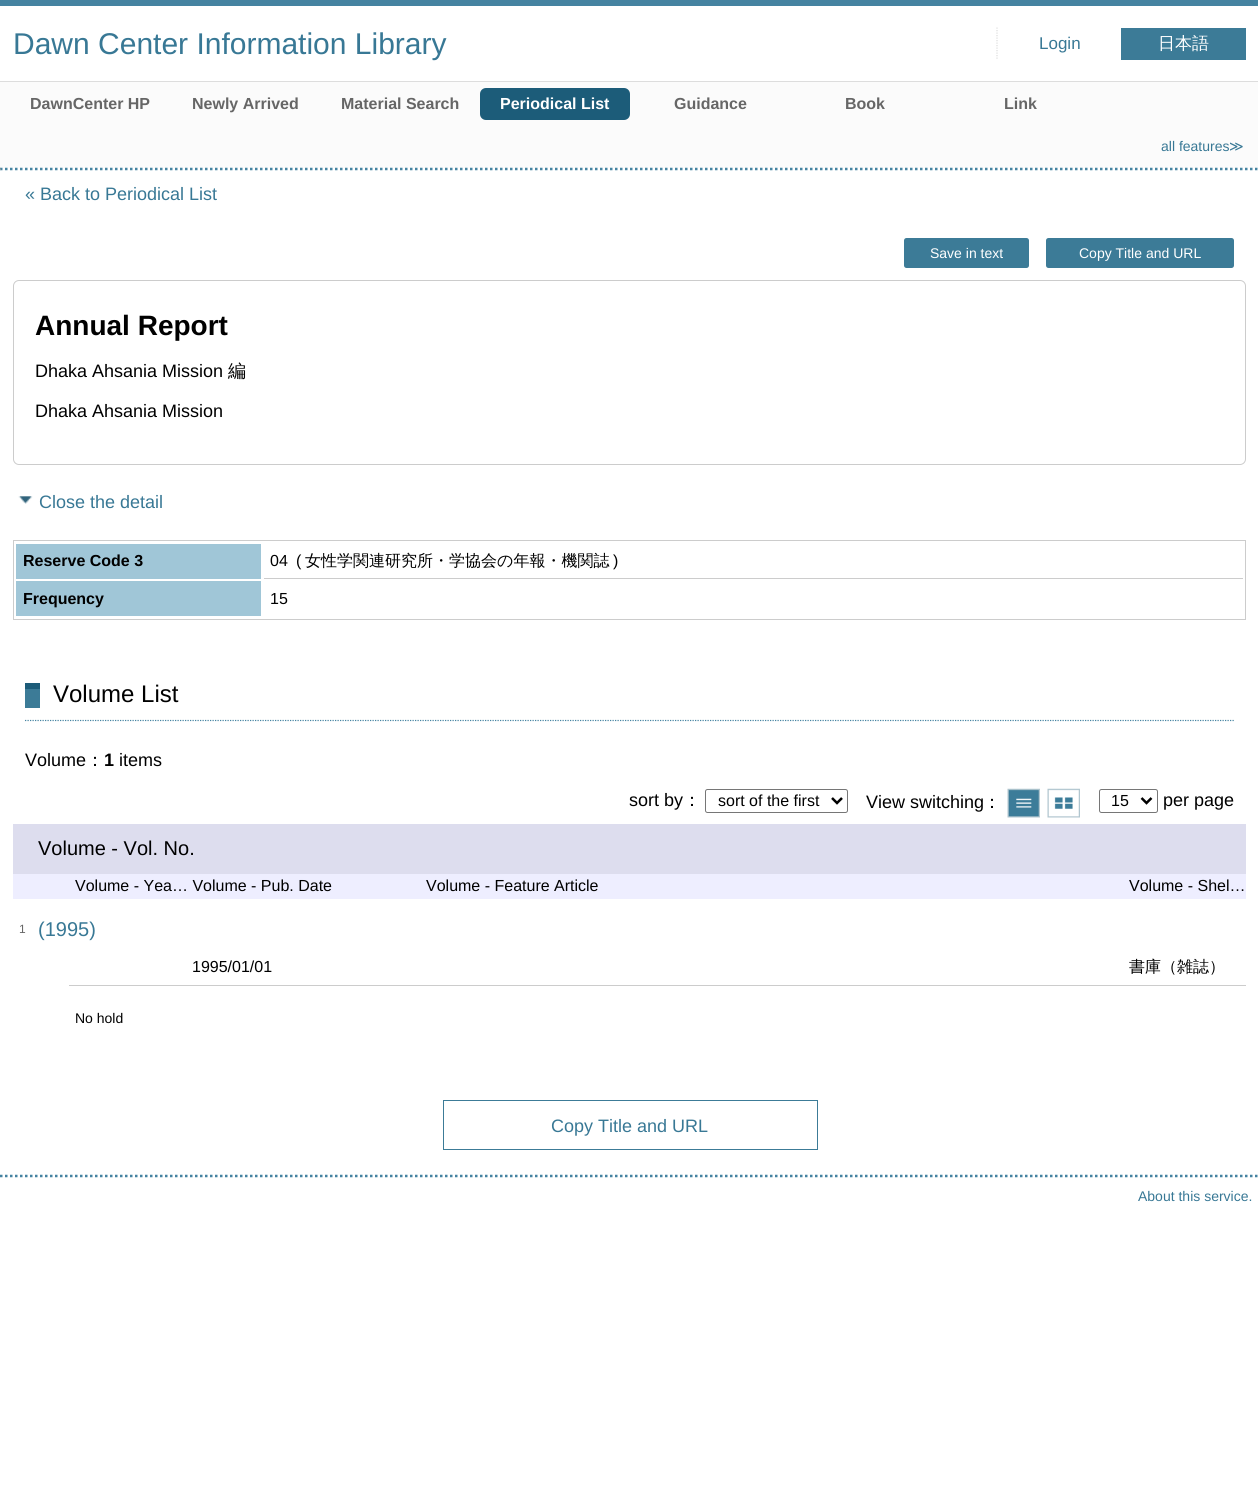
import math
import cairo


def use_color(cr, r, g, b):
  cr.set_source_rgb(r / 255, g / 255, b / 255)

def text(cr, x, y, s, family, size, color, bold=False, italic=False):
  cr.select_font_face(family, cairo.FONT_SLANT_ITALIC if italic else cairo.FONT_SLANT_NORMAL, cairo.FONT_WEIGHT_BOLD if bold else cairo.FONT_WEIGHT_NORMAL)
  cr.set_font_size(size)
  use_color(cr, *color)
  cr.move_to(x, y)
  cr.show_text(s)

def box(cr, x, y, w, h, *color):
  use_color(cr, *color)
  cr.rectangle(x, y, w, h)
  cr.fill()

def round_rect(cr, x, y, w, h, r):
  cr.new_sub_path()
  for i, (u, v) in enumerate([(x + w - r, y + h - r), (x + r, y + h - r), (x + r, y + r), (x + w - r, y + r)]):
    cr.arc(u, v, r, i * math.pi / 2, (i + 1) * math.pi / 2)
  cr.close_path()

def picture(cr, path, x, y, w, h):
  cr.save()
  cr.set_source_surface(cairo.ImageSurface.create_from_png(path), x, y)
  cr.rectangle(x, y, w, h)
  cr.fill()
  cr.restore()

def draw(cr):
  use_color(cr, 255, 255, 255)
  cr.paint()
  box(cr, 0, 0, 1258, 6, 69, 131, 161)
  cr.new_path()
  cr.move_to(997, 27.5)
  cr.line_to(997, 60)
  use_color(cr, 221, 221, 221)
  cr.set_line_width(1.2)
  cr.set_dash([1.25, 1.25])
  cr.stroke()
  box(cr, 1121, 28, 125, 32, 60, 123, 151)
  box(cr, 0, 82, 1258, 86, 251, 251, 251)
  box(cr, 0, 81, 1258, 1, 221, 221, 221)
  use_color(cr, 28, 92, 121)
  round_rect(cr, 480, 88, 150, 32, 6)
  cr.fill()
  cr.new_path()
  cr.move_to(0, 169)
  cr.line_to(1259, 169)
  use_color(cr, 69, 131, 161)
  cr.set_line_width(2.5)
  cr.set_dash([2.5, 2.5])
  cr.stroke()
  use_color(cr, 238, 238, 238)
  cr.new_path()
  cr.move_to(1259, 167.5)
  cr.line_to(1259, 170)
  cr.line_to(1257.5, 170)
  cr.close_path()
  cr.fill()
  use_color(cr, 159, 159, 159)
  cr.new_path()
  cr.move_to(0, 170)
  cr.line_to(0, 167.5)
  cr.line_to(1, 170)
  cr.close_path()
  cr.fill()
  use_color(cr, 60, 123, 151)
  round_rect(cr, 904, 238, 125, 30, 2.5)
  cr.fill()
  round_rect(cr, 1046, 238, 188, 30, 2.5)
  cr.fill()
  round_rect(cr, 13.5, 280.5, 1232, 184, 5.5)
  use_color(cr, 204, 204, 204)
  cr.set_line_width(1)
  cr.set_dash([])
  cr.stroke()
  picture(cr, "img_01.png", 18, 496, 15, 8)
  cr.rectangle(13.5, 540.5, 1232, 79)
  cr.stroke()
  box(cr, 16, 544, 245, 35, 160, 198, 215)
  box(cr, 264, 578, 979, 1, 204, 204, 204)
  box(cr, 16, 581, 245, 35, 160, 198, 215)
  cr.new_path()
  cr.move_to(25, 720.5)
  cr.line_to(1234, 720.5)
  use_color(cr, 69, 131, 161)
  cr.set_line_width(1.2)
  cr.set_dash([1.25, 1.25])
  cr.stroke()
  box(cr, 25, 689, 15, 19, 60, 123, 151)
  box(cr, 25, 683, 15, 6, 28, 92, 121)
  round_rect(cr, 705.5, 789.5, 142, 23, 2)
  use_color(cr, 118, 118, 118)
  cr.set_line_width(1)
  cr.set_dash([])
  cr.stroke()
  cr.new_path()
  cr.move_to(832, 798)
  cr.line_to(837, 803)
  cr.line_to(842, 798)
  use_color(cr, 0, 0, 0)
  cr.set_line_width(2.5)
  cr.stroke()
  picture(cr, "img_02.png", 1007, 788, 33, 30)
  picture(cr, "img_03.png", 1047, 788, 33, 30)
  round_rect(cr, 1099.5, 789.5, 58, 23, 2)
  use_color(cr, 118, 118, 118)
  cr.set_line_width(1)
  cr.stroke()
  cr.new_path()
  cr.move_to(1141.5, 798)
  cr.line_to(1146.5, 803)
  cr.line_to(1151.5, 798)
  use_color(cr, 0, 0, 0)
  cr.set_line_width(2.5)
  cr.stroke()
  box(cr, 13, 874, 1233, 25, 238, 238, 255)
  box(cr, 13, 824, 1233, 50, 221, 221, 238)
  box(cr, 69, 985, 1177, 1, 204, 204, 204)
  cr.rectangle(443.5, 1100.5, 374, 49)
  use_color(cr, 60, 123, 151)
  cr.set_line_width(1)
  cr.stroke()
  cr.new_path()
  cr.move_to(0, 1176)
  cr.line_to(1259, 1176)
  use_color(cr, 69, 131, 161)
  cr.set_line_width(2.5)
  cr.set_dash([2.5, 2.5])
  cr.stroke()
  text(cr, 13, 54, "Dawn Center Information Library", "Liberation Sans", 30, (56, 120, 149))
  text(cr, 1039, 49, "Login", "Liberation Sans", 17, (56, 120, 149))
  text(cr, 1158, 49, "日本語", "WenQuanYi Zen Hei Medium", 17, (255, 255, 255))
  text(cr, 30, 109, "DawnCenter HP", "Liberation Sans", 16, (102, 102, 102), bold=True)
  text(cr, 192, 109, "Newly Arrived", "Liberation Sans", 16, (102, 102, 102), bold=True)
  text(cr, 341, 109, "Material Search", "Liberation Sans", 16, (102, 102, 102), bold=True)
  text(cr, 500, 109, "Periodical List", "Liberation Sans", 16, (255, 255, 255), bold=True)
  text(cr, 674, 109, "Guidance", "Liberation Sans", 16, (102, 102, 102), bold=True)
  text(cr, 845, 109, "Book", "Liberation Sans", 16, (102, 102, 102), bold=True)
  text(cr, 1004, 109, "Link", "Liberation Sans", 16, (102, 102, 102), bold=True)
  text(cr, 1161, 151, "all features", "Liberation Sans", 14, (56, 120, 149))
  text(cr, 1229, 151, "≫", "DejaVu Sans", 14, (56, 120, 149))
  text(cr, 25, 200, "« Back to Periodical List", "Liberation Sans", 18, (56, 120, 149))
  text(cr, 930, 258, "Save in text", "Liberation Sans", 14, (255, 255, 255))
  text(cr, 1079, 258, "Copy Title and URL", "Liberation Sans", 14, (255, 255, 255))
  text(cr, 35, 335, "Annual Report", "Liberation Sans", 28, (0, 0, 0), bold=True)
  text(cr, 35, 377, "Dhaka Ahsania Mission", "Liberation Sans", 18, (0, 0, 0))
  text(cr, 228, 377, "編", "WenQuanYi Zen Hei Medium", 18, (0, 0, 0))
  text(cr, 35, 417, "Dhaka Ahsania Mission", "Liberation Sans", 18, (0, 0, 0))
  text(cr, 39, 508, "Close the detail", "Liberation Sans", 18, (56, 120, 149))
  text(cr, 23, 566, "Reserve Code 3", "Liberation Sans", 16, (0, 0, 0), bold=True)
  text(cr, 270, 566, "04", "Liberation Sans", 16, (0, 0, 0))
  text(cr, 296, 566, "(", "Liberation Sans", 16, (0, 0, 0))
  text(cr, 305, 566, "女性学関連研究所・学協会の年報・機関誌", "WenQuanYi Zen Hei Medium", 16, (0, 0, 0))
  text(cr, 613, 566, ")", "Liberation Sans", 16, (0, 0, 0))
  text(cr, 23, 604, "Frequency", "Liberation Sans", 16, (0, 0, 0), bold=True)
  text(cr, 270, 604, "15", "Liberation Sans", 16, (0, 0, 0))
  text(cr, 53, 702, "Volume List", "Liberation Sans", 24, (0, 0, 0))
  text(cr, 25, 766, "Volume", "Liberation Sans", 18, (0, 0, 0))
  text(cr, 86, 766, "：", "WenQuanYi Zen Hei Medium", 18, (0, 0, 0))
  text(cr, 104, 766, "1", "Liberation Sans", 18, (0, 0, 0), bold=True)
  text(cr, 119, 766, "items", "Liberation Sans", 18, (0, 0, 0))
  text(cr, 629, 806, "sort by", "Liberation Sans", 18, (0, 0, 0))
  text(cr, 683, 806, "：", "WenQuanYi Zen Hei Medium", 18, (0, 0, 0))
  text(cr, 718, 806, "sort of the first", "Liberation Sans", 16, (0, 0, 0))
  text(cr, 866, 808, "View switching", "Liberation Sans", 18, (0, 0, 0))
  text(cr, 983, 808, "：", "WenQuanYi Zen Hei Medium", 18, (0, 0, 0))
  text(cr, 1111, 806, "15", "Liberation Sans", 16, (0, 0, 0))
  text(cr, 1163, 806, "per page", "Liberation Sans", 18, (0, 0, 0))
  text(cr, 38, 855, "Volume - Vol. No.", "Liberation Sans", 20, (0, 0, 0))
  text(cr, 75, 891, "Volume - Yea… Volume - Pub. Date", "Liberation Sans", 16, (0, 0, 0))
  text(cr, 426, 891, "Volume - Feature Article", "Liberation Sans", 16, (0, 0, 0))
  text(cr, 1129, 891, "Volume - Shel…", "Liberation Sans", 16, (0, 0, 0))
  text(cr, 19, 933, "1", "Liberation Sans", 12, (102, 102, 102))
  text(cr, 38, 936, "(1995)", "Liberation Sans", 20, (56, 120, 149))
  text(cr, 192, 972, "1995/01/01", "Liberation Sans", 16, (0, 0, 0))
  text(cr, 1129, 972, "書庫（雑誌）", "WenQuanYi Zen Hei Medium", 16, (0, 0, 0))
  text(cr, 75, 1023, "No hold", "Liberation Sans", 14, (0, 0, 0))
  text(cr, 551, 1132, "Copy Title and URL", "Liberation Sans", 18, (56, 120, 149))
  text(cr, 1138, 1201, "About this service.", "Liberation Sans", 14, (56, 120, 149))


surface = cairo.ImageSurface(cairo.FORMAT_RGB24, 1258, 1495)
cr = cairo.Context(surface)
options = cairo.FontOptions()
options.set_hint_metrics(cairo.HINT_METRICS_OFF)
options.set_hint_style(cairo.HINT_STYLE_NONE)
cr.set_font_options(options)
cr.set_miter_limit(4)
draw(cr)
surface.write_to_png("out.png")
